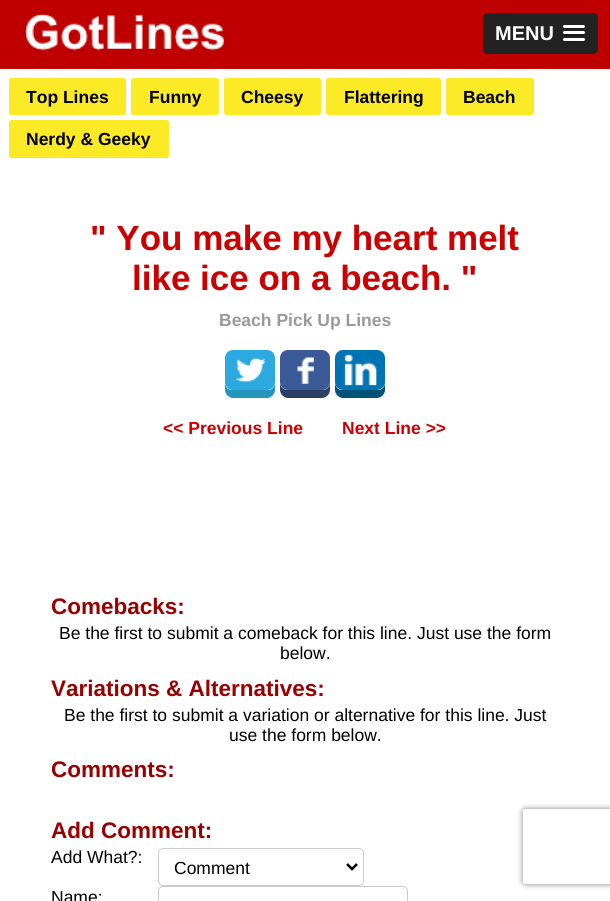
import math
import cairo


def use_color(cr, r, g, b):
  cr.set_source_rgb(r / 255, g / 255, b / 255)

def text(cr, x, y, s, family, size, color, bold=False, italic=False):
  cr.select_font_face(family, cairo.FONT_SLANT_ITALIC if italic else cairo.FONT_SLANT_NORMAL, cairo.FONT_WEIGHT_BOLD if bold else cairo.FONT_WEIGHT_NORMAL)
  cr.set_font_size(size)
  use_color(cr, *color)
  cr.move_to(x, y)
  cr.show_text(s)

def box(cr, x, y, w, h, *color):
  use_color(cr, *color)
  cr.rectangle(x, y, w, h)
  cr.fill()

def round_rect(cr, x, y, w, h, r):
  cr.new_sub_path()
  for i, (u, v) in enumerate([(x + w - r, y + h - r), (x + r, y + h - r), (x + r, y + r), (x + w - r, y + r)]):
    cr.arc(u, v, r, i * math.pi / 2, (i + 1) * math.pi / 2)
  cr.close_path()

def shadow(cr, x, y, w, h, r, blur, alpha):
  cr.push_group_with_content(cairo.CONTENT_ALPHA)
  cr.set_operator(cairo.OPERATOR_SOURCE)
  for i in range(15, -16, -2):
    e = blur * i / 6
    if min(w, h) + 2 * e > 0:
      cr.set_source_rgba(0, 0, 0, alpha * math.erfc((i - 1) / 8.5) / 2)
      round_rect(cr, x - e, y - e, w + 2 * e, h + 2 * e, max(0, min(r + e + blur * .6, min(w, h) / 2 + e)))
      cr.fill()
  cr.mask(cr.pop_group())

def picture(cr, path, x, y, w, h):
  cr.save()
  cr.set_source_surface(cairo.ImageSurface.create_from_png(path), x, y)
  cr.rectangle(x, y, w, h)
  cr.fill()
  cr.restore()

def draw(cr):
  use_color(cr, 255, 255, 255)
  cr.paint()
  box(cr, 0, 0, 610, 69, 191, 0, 0)
  picture(cr, "img_01.png", 25, 14, 199, 37)
  use_color(cr, 34, 34, 34)
  round_rect(cr, 483, 13, 115, 41, 5)
  cr.fill()
  use_color(cr, 26, 26, 26)
  cr.new_path()
  cr.move_to(563, 27.5)
  cr.curve_to(562.5, 29.5, 566.5, 29, 567.5, 29)
  cr.line_to(580.5, 29)
  cr.curve_to(581, 29, 586, 29.5, 585, 27)
  cr.line_to(584, 27.5)
  cr.curve_to(582, 27.5, 563.5, 27.5, 563, 27.5)
  cr.close_path()
  cr.fill()
  use_color(cr, 255, 255, 255)
  round_rect(cr, 563, 25, 22, 3, 1.5)
  cr.fill()
  use_color(cr, 26, 26, 26)
  cr.new_path()
  cr.move_to(563.5, 33.5)
  cr.curve_to(561.5, 36.5, 567, 36, 567.5, 36)
  cr.line_to(574, 36)
  cr.curve_to(576, 36, 584, 36.5, 584.5, 35.5)
  cr.curve_to(585, 34.5, 585, 34, 584.5, 33.5)
  cr.curve_to(584, 34, 564.5, 34, 563.5, 33.5)
  cr.close_path()
  cr.fill()
  use_color(cr, 255, 255, 255)
  round_rect(cr, 563, 31, 22, 3, 1.5)
  cr.fill()
  use_color(cr, 26, 26, 26)
  cr.new_path()
  cr.move_to(563, 40)
  cr.curve_to(562, 42.5, 567, 42, 567.5, 42)
  cr.line_to(580.5, 42)
  cr.curve_to(580.5, 42, 587, 42.5, 584.5, 39.5)
  cr.line_to(584, 40)
  cr.close_path()
  cr.fill()
  use_color(cr, 255, 255, 255)
  round_rect(cr, 563, 38, 22, 3, 1.5)
  cr.fill()
  use_color(cr, 251, 234, 37)
  round_rect(cr, 9, 78, 117, 37, 2.5)
  cr.fill()
  round_rect(cr, 131, 78, 88, 37, 2.5)
  cr.fill()
  round_rect(cr, 224, 78, 97, 37, 2.5)
  cr.fill()
  round_rect(cr, 326, 78, 115, 37, 2.5)
  cr.fill()
  round_rect(cr, 446, 78, 88, 37, 2.5)
  cr.fill()
  round_rect(cr, 9, 120, 160, 38, 2.5)
  cr.fill()
  use_color(cr, 38, 149, 188)
  cr.new_path()
  cr.move_to(225, 382)
  cr.line_to(225, 390)
  cr.curve_to(225, 394, 229, 398, 233, 398)
  cr.line_to(267, 398)
  cr.curve_to(271, 398, 275, 394, 275, 390)
  cr.line_to(275, 382)
  cr.curve_to(275, 387, 272, 390, 268, 390)
  cr.line_to(232, 390)
  cr.curve_to(228, 390, 225, 387, 225, 382)
  cr.close_path()
  cr.fill()
  use_color(cr, 44, 169, 225)
  round_rect(cr, 225, 350, 50, 40, 8)
  cr.fill()
  picture(cr, "img_02.png", 236, 358, 30, 24)
  use_color(cr, 41, 63, 99)
  cr.new_path()
  cr.move_to(280, 382)
  cr.line_to(280, 390)
  cr.curve_to(280, 394, 284, 398, 288, 398)
  cr.line_to(322, 398)
  cr.curve_to(326, 398, 330, 394, 330, 390)
  cr.line_to(330, 382)
  cr.curve_to(330, 387, 327, 390, 322, 390)
  cr.line_to(288, 390)
  cr.curve_to(283, 390, 280, 387, 280, 382)
  cr.close_path()
  cr.fill()
  use_color(cr, 59, 89, 151)
  round_rect(cr, 280, 350, 50, 40, 8)
  cr.fill()
  picture(cr, "img_03.png", 297, 357, 17, 27)
  use_color(cr, 0, 83, 119)
  cr.new_path()
  cr.move_to(335, 382)
  cr.line_to(335, 390)
  cr.curve_to(335, 394, 339, 398, 343, 398)
  cr.line_to(377, 398)
  cr.curve_to(381, 398, 385, 394, 385, 390)
  cr.line_to(385, 382)
  cr.curve_to(385, 387, 382, 390, 378, 390)
  cr.line_to(342, 390)
  cr.curve_to(338, 390, 335, 387, 335, 382)
  cr.close_path()
  cr.fill()
  use_color(cr, 0, 115, 178)
  round_rect(cr, 335, 350, 50, 40, 8)
  cr.fill()
  picture(cr, "img_04.png", 344, 354, 33, 32)
  round_rect(cr, 158.5, 848.5, 205, 37, 4.5)
  use_color(cr, 204, 204, 204)
  cr.set_line_width(1)
  cr.stroke()
  cr.new_path()
  cr.move_to(347, 864)
  cr.line_to(352, 869)
  cr.line_to(357, 864)
  use_color(cr, 0, 0, 0)
  cr.set_line_width(2.5)
  cr.stroke()
  round_rect(cr, 158.5, 886.5, 249, 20, 4.5)
  use_color(cr, 204, 204, 204)
  cr.set_line_width(1)
  cr.stroke()
  cr.save()
  cr.set_fill_rule(cairo.FILL_RULE_EVEN_ODD)
  cr.new_path()
  cr.move_to(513, 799)
  cr.line_to(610, 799)
  cr.line_to(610, 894)
  cr.line_to(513, 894)
  cr.close_path()
  cr.move_to(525.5, 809)
  cr.line_to(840.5, 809)
  cr.curve_to(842, 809, 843, 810, 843, 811.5)
  cr.line_to(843, 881.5)
  cr.curve_to(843, 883, 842, 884, 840.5, 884)
  cr.line_to(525.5, 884)
  cr.curve_to(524, 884, 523, 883, 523, 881.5)
  cr.line_to(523, 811.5)
  cr.curve_to(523, 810, 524, 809, 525.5, 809)
  cr.close_path()
  cr.clip()
  use_color(cr, 128, 128, 128)
  shadow(cr, 523, 809, 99, 75, 2.5, 3, 1)
  cr.restore()
  text(cr, 495, 40, "MENU", "Liberation Sans", 20, (255, 255, 255), bold=True)
  text(cr, 26, 103, "Top Lines", "Liberation Sans", 17.5, (0, 0, 0), bold=True)
  text(cr, 149, 103, "Funny", "Liberation Sans", 17.5, (0, 0, 0), bold=True)
  text(cr, 241, 103, "Cheesy", "Liberation Sans", 17.5, (0, 0, 0), bold=True)
  text(cr, 344, 103, "Flattering", "Liberation Sans", 17.5, (0, 0, 0), bold=True)
  text(cr, 463, 103, "Beach", "Liberation Sans", 17.5, (0, 0, 0), bold=True)
  text(cr, 26, 145, "Nerdy & Geeky", "Liberation Sans", 17.5, (0, 0, 0), bold=True)
  text(cr, 90, 250, "\" You make my heart melt", "Liberation Sans", 35, (204, 0, 0), bold=True)
  text(cr, 132, 290, "like ice on a beach. \"", "Liberation Sans", 35, (204, 0, 0), bold=True)
  text(cr, 219, 326, "Beach Pick Up Lines", "Liberation Sans", 17.5, (153, 153, 153), bold=True)
  text(cr, 163, 434, "<< Previous Line", "Liberation Sans", 17.5, (204, 0, 0), bold=True)
  text(cr, 342, 434, "Next Line >>", "Liberation Sans", 17.5, (204, 0, 0), bold=True)
  text(cr, 51, 614, "Comebacks:", "Liberation Sans", 22.5, (153, 0, 0), bold=True)
  text(cr, 59, 639, "Be the first to submit a comeback for this line. Just use the form", "Liberation Sans", 17.5, (0, 0, 0))
  text(cr, 280, 659, "below.", "Liberation Sans", 17.5, (0, 0, 0))
  text(cr, 51, 696, "Variations & Alternatives:", "Liberation Sans", 22.5, (153, 0, 0), bold=True)
  text(cr, 64, 721, "Be the first to submit a variation or alternative for this line. Just", "Liberation Sans", 17.5, (0, 0, 0))
  text(cr, 229, 741, "use the form below.", "Liberation Sans", 17.5, (0, 0, 0))
  text(cr, 51, 777, "Comments:", "Liberation Sans", 22.5, (153, 0, 0), bold=True)
  text(cr, 51, 838, "Add Comment:", "Liberation Sans", 22.5, (153, 0, 0), bold=True)
  text(cr, 51, 863, "Add What?:", "Liberation Sans", 17.5, (0, 0, 0))
  text(cr, 174, 874, "Comment", "Liberation Sans", 17.5, (0, 0, 0))
  text(cr, 51, 903, "Name:", "Liberation Sans", 17.5, (0, 0, 0))


surface = cairo.ImageSurface(cairo.FORMAT_RGB24, 610, 901)
cr = cairo.Context(surface)
options = cairo.FontOptions()
options.set_hint_metrics(cairo.HINT_METRICS_OFF)
options.set_hint_style(cairo.HINT_STYLE_NONE)
cr.set_font_options(options)
cr.set_miter_limit(4)
draw(cr)
surface.write_to_png("out.png")
